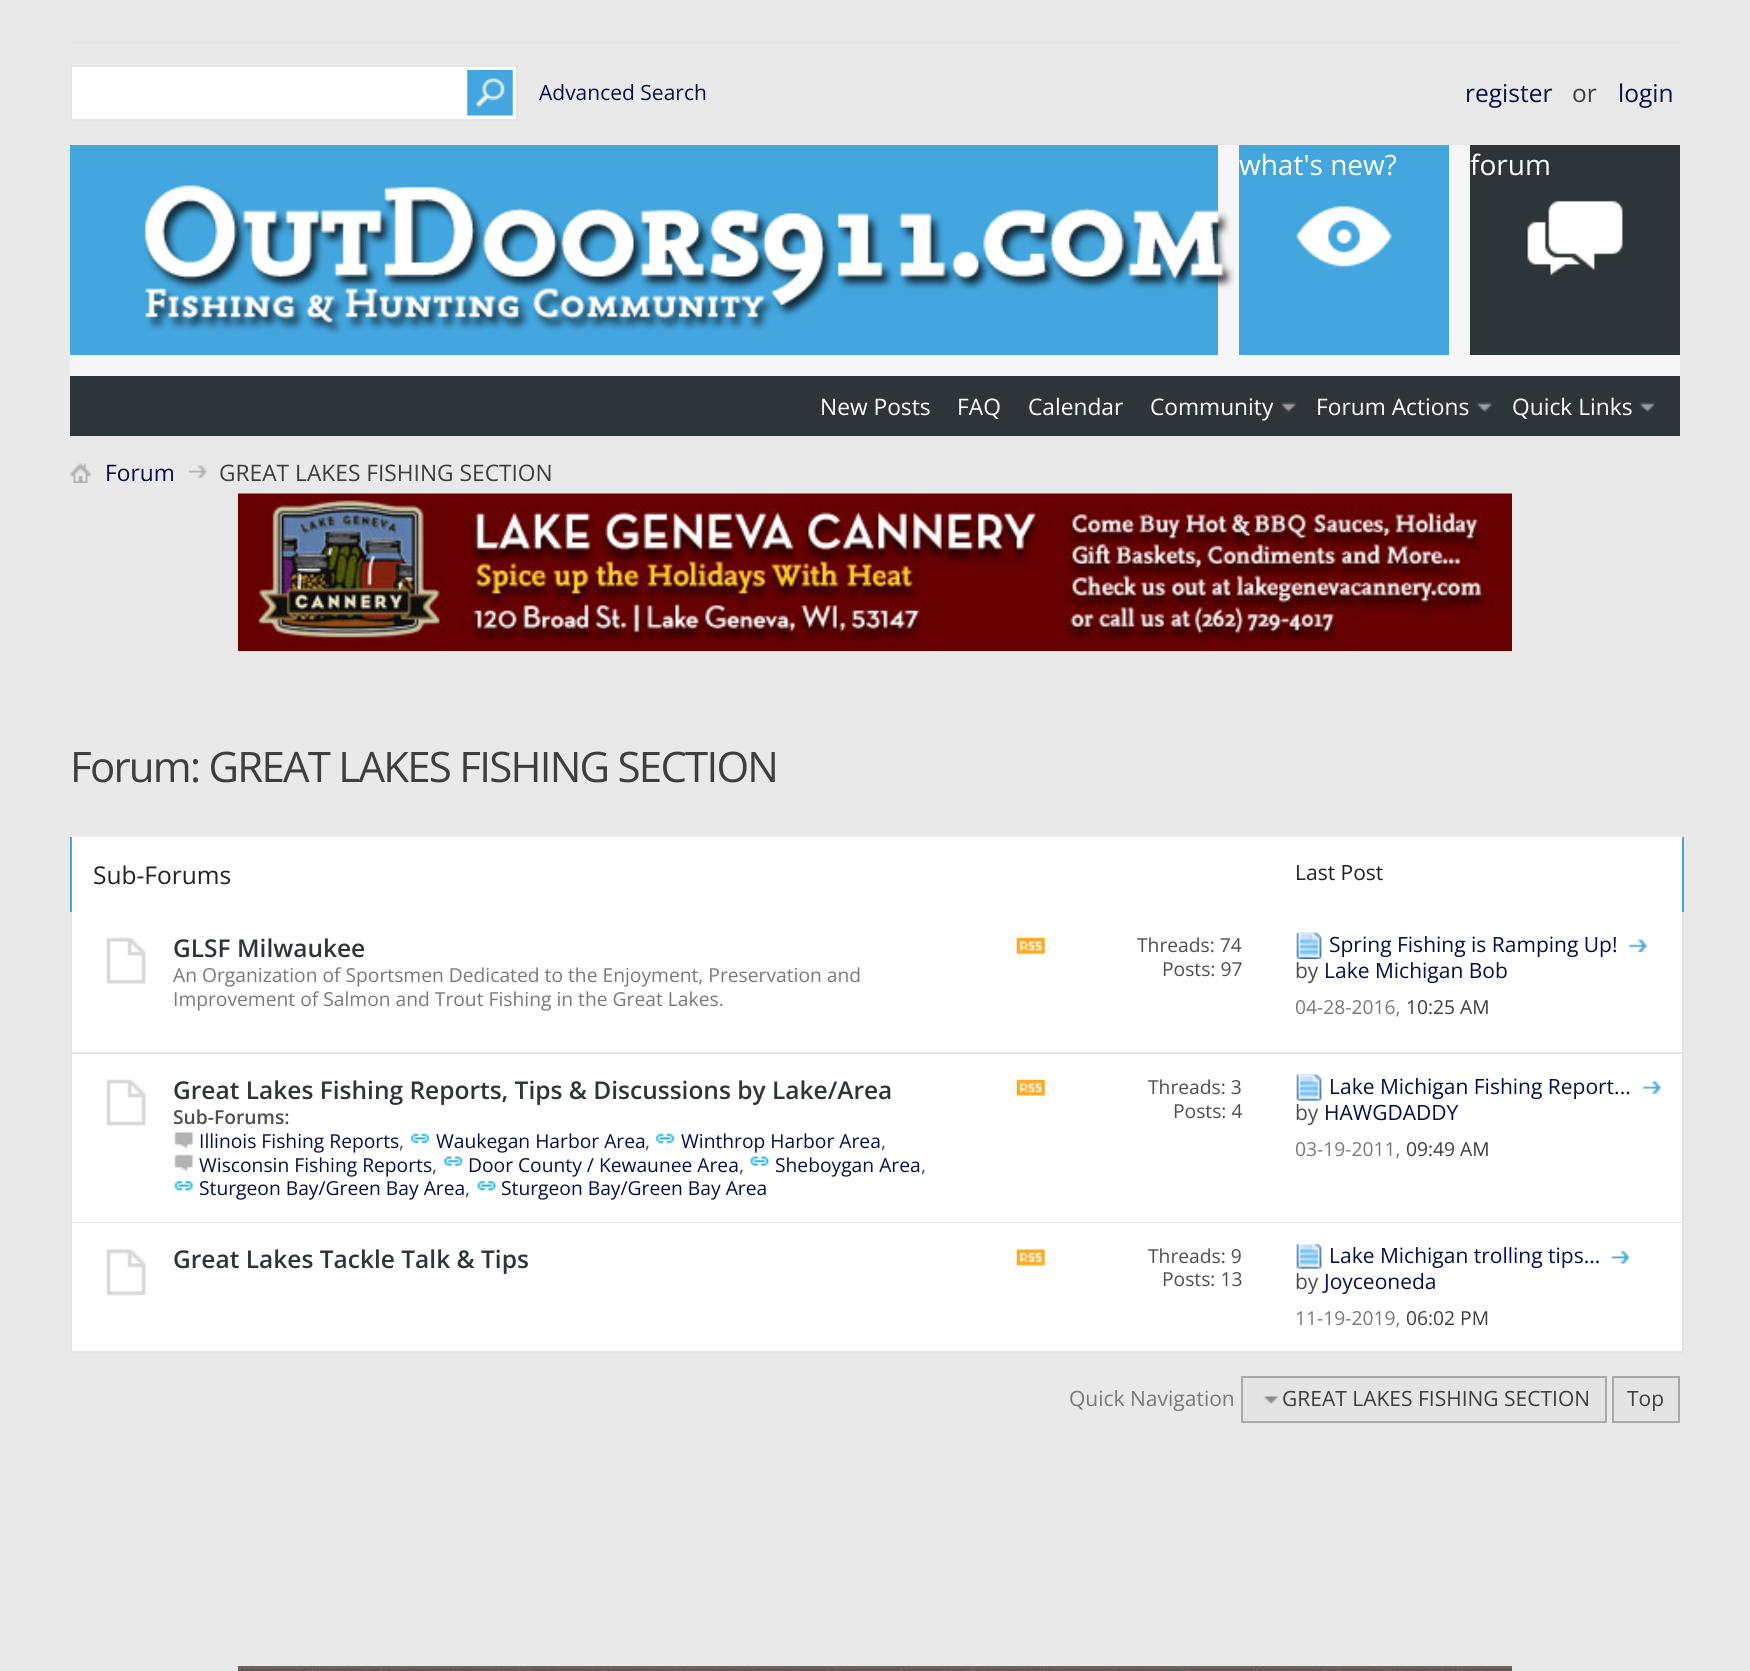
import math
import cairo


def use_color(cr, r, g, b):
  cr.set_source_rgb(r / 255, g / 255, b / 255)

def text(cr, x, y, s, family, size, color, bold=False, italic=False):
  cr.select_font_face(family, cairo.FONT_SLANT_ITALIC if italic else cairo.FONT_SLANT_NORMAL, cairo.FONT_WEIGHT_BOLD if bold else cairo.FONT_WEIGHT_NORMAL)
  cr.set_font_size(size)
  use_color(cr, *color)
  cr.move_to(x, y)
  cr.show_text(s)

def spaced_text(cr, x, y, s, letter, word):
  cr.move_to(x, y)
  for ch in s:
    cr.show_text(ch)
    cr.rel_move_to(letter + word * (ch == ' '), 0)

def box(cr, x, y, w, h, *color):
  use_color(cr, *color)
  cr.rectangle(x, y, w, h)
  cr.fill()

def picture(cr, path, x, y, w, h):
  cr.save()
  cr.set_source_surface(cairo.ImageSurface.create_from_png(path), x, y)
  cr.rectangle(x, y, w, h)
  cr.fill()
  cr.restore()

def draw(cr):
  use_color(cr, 233, 233, 233)
  cr.paint()
  box(cr, 70, 42, 1610, 2, 228, 228, 228)
  use_color(cr, 255, 255, 255)
  cr.rectangle(71, 66, 446, 54)
  cr.fill_preserve()
  use_color(cr, 228, 228, 228)
  cr.stroke()
  picture(cr, "img_01.png", 467, 70, 46, 46)
  box(cr, 70, 145, 1379, 210, 67, 166, 223)
  box(cr, 1218, 145, 21, 210, 246, 246, 246)
  picture(cr, "img_02.png", 1296, 206, 96, 61)
  box(cr, 1449, 145, 21, 210, 246, 246, 246)
  box(cr, 1470, 145, 210, 210, 46, 53, 57)
  picture(cr, "img_03.png", 1527, 200, 96, 76)
  box(cr, 70, 376, 1610, 60, 46, 53, 57)
  box(cr, 70, 355, 1610, 21, 246, 246, 246)
  picture(cr, "img_04.png", 1280, 402, 17, 10)
  picture(cr, "img_05.png", 1476, 402, 17, 10)
  picture(cr, "img_06.png", 1639, 402, 17, 10)
  picture(cr, "img_07.png", 144, 185, 1090, 149)
  picture(cr, "img_08.png", 70, 463, 21, 20)
  picture(cr, "img_09.png", 189, 465, 18, 14)
  picture(cr, "img_10.png", 238, 493, 1274, 158)
  box(cr, 72, 837, 1610, 215, 255, 255, 255)
  box(cr, 1682, 837, 2, 75, 67, 166, 223)
  box(cr, 70, 837, 2, 75, 67, 166, 223)
  box(cr, 1682, 912, 2, 441, 228, 228, 228)
  box(cr, 70, 1052, 1614, 2, 228, 228, 228)
  box(cr, 70, 912, 2, 142, 228, 228, 228)
  picture(cr, "img_11.png", 106, 937, 40, 47)
  picture(cr, "img_12.png", 1016, 938, 29, 17)
  picture(cr, "img_13.png", 1296, 932, 26, 27)
  picture(cr, "img_14.png", 1628, 939, 20, 13)
  box(cr, 72, 1054, 1610, 168, 255, 255, 255)
  box(cr, 70, 1222, 1614, 1, 228, 228, 228)
  box(cr, 70, 1054, 2, 169, 228, 228, 228)
  picture(cr, "img_15.png", 106, 1079, 40, 47)
  picture(cr, "img_16.png", 174, 1131, 19, 17)
  picture(cr, "img_17.png", 410, 1133, 20, 11)
  picture(cr, "img_18.png", 655, 1133, 20, 11)
  picture(cr, "img_19.png", 174, 1154, 19, 17)
  picture(cr, "img_20.png", 444, 1156, 19, 10)
  picture(cr, "img_21.png", 750, 1156, 19, 10)
  picture(cr, "img_22.png", 174, 1180, 19, 11)
  picture(cr, "img_23.png", 477, 1180, 19, 11)
  picture(cr, "img_24.png", 1016, 1079, 29, 17)
  picture(cr, "img_25.png", 1296, 1074, 26, 27)
  picture(cr, "img_26.png", 1642, 1081, 20, 13)
  box(cr, 72, 1223, 1610, 128, 255, 255, 255)
  box(cr, 70, 1351, 1614, 2, 228, 228, 228)
  box(cr, 70, 1223, 2, 130, 228, 228, 228)
  picture(cr, "img_27.png", 106, 1249, 40, 47)
  picture(cr, "img_28.png", 1016, 1249, 29, 17)
  picture(cr, "img_29.png", 1296, 1244, 26, 25)
  picture(cr, "img_30.png", 1611, 1250, 19, 14)
  cr.rectangle(1242, 1377, 364, 45)
  cr.fill_preserve()
  use_color(cr, 168, 168, 168)
  cr.stroke()
  picture(cr, "img_31.png", 1263, 1396, 15, 8)
  use_color(cr, 228, 228, 228)
  cr.rectangle(1613, 1377, 66, 45)
  cr.fill_preserve()
  use_color(cr, 168, 168, 168)
  cr.stroke()
  picture(cr, "img_32.png", 238, 1666, 1274, 5)
  text(cr, 539, 100, "Advanced Search", "Open Sans", 21, (5, 14, 74))
  text(cr, 1465, 102, "register", "Open Sans", 24.5, (5, 14, 74))
  text(cr, 1572, 102, "or", "Open Sans", 24.5, (62, 62, 62))
  text(cr, 1618, 102, "login", "Open Sans", 24.5, (5, 14, 74))
  text(cr, 1239, 175, "what's new?", "Open Sans", 28, (255, 255, 255))
  text(cr, 1470, 175, "forum", "Open Sans", 28, (255, 255, 255))
  text(cr, 820, 415, "New Posts", "Open Sans", 22.75, (255, 255, 255))
  text(cr, 957, 415, "FAQ", "Open Sans", 22.75, (255, 255, 255))
  text(cr, 1028, 415, "Calendar", "Open Sans", 22.75, (255, 255, 255))
  text(cr, 1150, 415, "Community", "Open Sans", 22.75, (255, 255, 255))
  text(cr, 1316, 415, "Forum Actions", "Open Sans", 22.75, (255, 255, 255))
  text(cr, 1512, 415, "Quick Links", "Open Sans", 22.75, (255, 255, 255))
  text(cr, 105, 481, "Forum", "Open Sans", 22.75, (5, 14, 74))
  text(cr, 219, 481, "GREAT LAKES FISHING SECTION", "Open Sans", 22.75, (62, 62, 62))
  cr.set_font_size(42)
  spaced_text(cr, 70, 782, "Forum: GREAT LAKES FISHING SECTION", -1.75, 0)
  text(cr, 93, 884, "Sub-Forums", "Open Sans", 24.5, (34, 34, 34))
  text(cr, 1295, 880, "Last Post", "Open Sans", 21, (34, 34, 34))
  text(cr, 173, 957, "GLSF Milwaukee", "Open Sans SemiBold", 24.5, (46, 53, 57))
  text(cr, 173, 982, "An Organization of Sportsmen Dedicated to the Enjoyment, Preservation and", "Open Sans", 19.25, (121, 121, 121))
  text(cr, 173, 1006, "Improvement of Salmon and Trout Fishing in the Great Lakes.", "Open Sans", 19.25, (121, 121, 121))
  text(cr, 1137, 952, "Threads: 74", "Open Sans", 19.25, (78, 78, 78))
  text(cr, 1162, 976, "Posts: 97", "Open Sans", 19.25, (78, 78, 78))
  text(cr, 1329, 952, "Spring Fishing is Ramping Up!", "Open Sans", 21, (5, 14, 74))
  text(cr, 1295, 978, "by", "Open Sans", 21, (78, 78, 78))
  text(cr, 1324, 978, "Lake Michigan Bob", "Open Sans", 21, (5, 14, 74))
  text(cr, 1295, 1014, "04-28-2016,", "Open Sans", 19.25, (121, 121, 121))
  text(cr, 1406, 1014, "10:25 AM", "Open Sans", 19.25, (62, 62, 62))
  text(cr, 173, 1099, "Great Lakes Fishing Reports, Tips & Discussions by Lake/Area", "Open Sans SemiBold", 24.5, (46, 53, 57))
  text(cr, 173, 1124, "Sub-Forums:", "Open Sans SemiBold", 19.25, (78, 78, 78))
  text(cr, 199, 1148, "Illinois Fishing Reports", "Open Sans", 19.25, (5, 14, 74))
  text(cr, 399, 1148, ",", "Open Sans", 19.25, (78, 78, 78))
  text(cr, 436, 1148, "Waukegan Harbor Area", "Open Sans", 19.25, (5, 14, 74))
  text(cr, 645, 1148, ",", "Open Sans", 19.25, (78, 78, 78))
  text(cr, 681, 1148, "Winthrop Harbor Area", "Open Sans", 19.25, (5, 14, 74))
  text(cr, 881, 1148, ",", "Open Sans", 19.25, (78, 78, 78))
  text(cr, 199, 1172, "Wisconsin Fishing Reports", "Open Sans", 19.25, (5, 14, 74))
  text(cr, 432, 1172, ",", "Open Sans", 19.25, (78, 78, 78))
  text(cr, 468, 1172, "Door County / Kewaunee Area", "Open Sans", 19.25, (5, 14, 74))
  text(cr, 739, 1172, ",", "Open Sans", 19.25, (78, 78, 78))
  text(cr, 775, 1172, "Sheboygan Area", "Open Sans", 19.25, (5, 14, 74))
  text(cr, 921, 1172, ",", "Open Sans", 19.25, (78, 78, 78))
  text(cr, 199, 1195, "Sturgeon Bay/Green Bay Area", "Open Sans", 19.25, (5, 14, 74))
  text(cr, 465, 1195, ",", "Open Sans", 19.25, (78, 78, 78))
  text(cr, 501, 1195, "Sturgeon Bay/Green Bay Area", "Open Sans", 19.25, (5, 14, 74))
  text(cr, 1148, 1094, "Threads: 3", "Open Sans", 19.25, (78, 78, 78))
  text(cr, 1173, 1118, "Posts: 4", "Open Sans", 19.25, (78, 78, 78))
  text(cr, 1329, 1094, "Lake Michigan Fishing Report...", "Open Sans", 21, (5, 14, 74))
  text(cr, 1295, 1120, "by", "Open Sans", 21, (78, 78, 78))
  text(cr, 1324, 1120, "HAWGDADDY", "Open Sans", 21, (5, 14, 74))
  text(cr, 1295, 1156, "03-19-2011,", "Open Sans", 19.25, (121, 121, 121))
  text(cr, 1406, 1156, "09:49 AM", "Open Sans", 19.25, (62, 62, 62))
  text(cr, 173, 1268, "Great Lakes Tackle Talk & Tips", "Open Sans SemiBold", 24.5, (46, 53, 57))
  text(cr, 1148, 1263, "Threads: 9", "Open Sans", 19.25, (78, 78, 78))
  text(cr, 1162, 1286, "Posts: 13", "Open Sans", 19.25, (78, 78, 78))
  text(cr, 1329, 1263, "Lake Michigan trolling tips...", "Open Sans", 21, (5, 14, 74))
  text(cr, 1295, 1289, "by", "Open Sans", 21, (78, 78, 78))
  text(cr, 1324, 1289, "Joyceoneda", "Open Sans", 21, (5, 14, 74))
  text(cr, 1295, 1325, "11-19-2019,", "Open Sans", 19.25, (121, 121, 121))
  text(cr, 1406, 1325, "06:02 PM", "Open Sans", 19.25, (62, 62, 62))
  text(cr, 1069, 1406, "Quick Navigation", "Open Sans", 21, (121, 121, 121))
  text(cr, 1282, 1406, "GREAT LAKES FISHING SECTION", "Open Sans", 21, (62, 62, 62))
  text(cr, 1627, 1406, "Top", "Open Sans", 21, (62, 62, 62))


surface = cairo.ImageSurface(cairo.FORMAT_RGB24, 1750, 1671)
cr = cairo.Context(surface)
options = cairo.FontOptions()
options.set_hint_metrics(cairo.HINT_METRICS_OFF)
options.set_hint_style(cairo.HINT_STYLE_NONE)
cr.set_font_options(options)
cr.set_miter_limit(4)
draw(cr)
surface.write_to_png("out.png")
